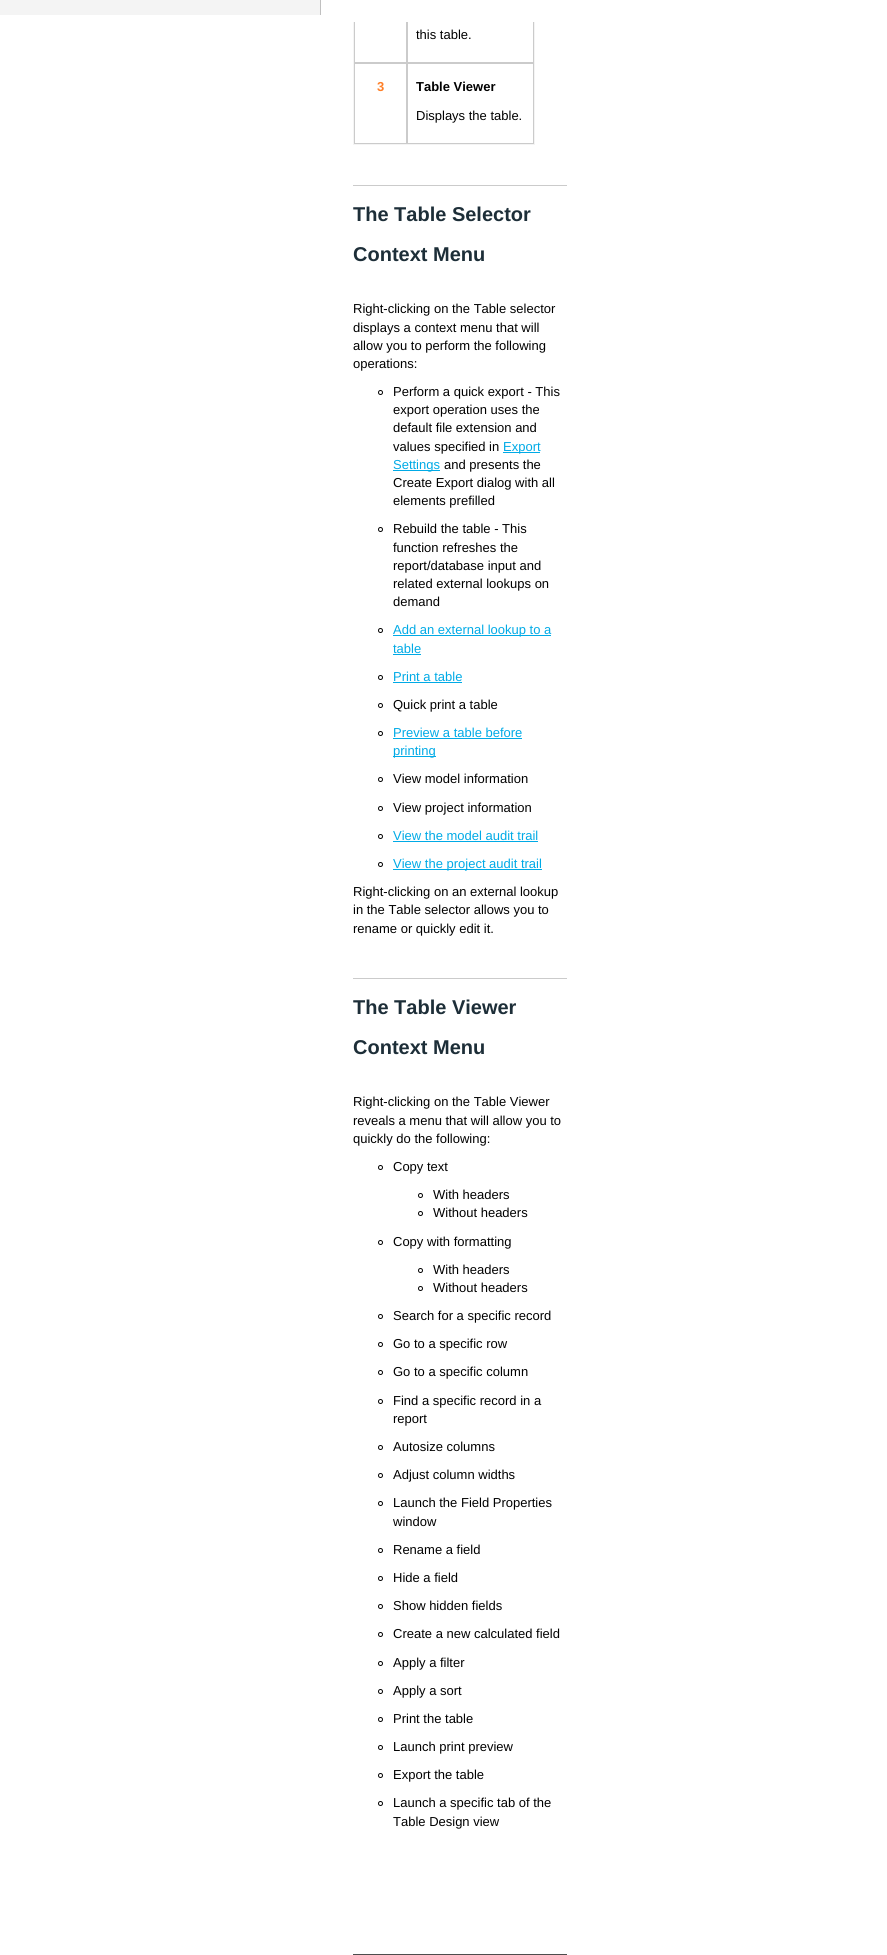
import math
import cairo


def use_color(cr, r, g, b):
  cr.set_source_rgb(r / 255, g / 255, b / 255)

def text(cr, x, y, s, family, size, color, bold=False, italic=False):
  cr.select_font_face(family, cairo.FONT_SLANT_ITALIC if italic else cairo.FONT_SLANT_NORMAL, cairo.FONT_WEIGHT_BOLD if bold else cairo.FONT_WEIGHT_NORMAL)
  cr.set_font_size(size)
  use_color(cr, *color)
  cr.move_to(x, y)
  cr.show_text(s)

def box(cr, x, y, w, h, *color):
  use_color(cr, *color)
  cr.rectangle(x, y, w, h)
  cr.fill()

def draw(cr):
  use_color(cr, 255, 255, 255)
  cr.paint()
  box(cr, 0, 0, 320, 15, 244, 244, 244)
  box(cr, 320, 0, 1, 15, 192, 192, 192)
  cr.rectangle(353.5, -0.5, 181, 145)
  use_color(cr, 244, 244, 244)
  cr.set_line_width(1)
  cr.stroke()
  cr.rectangle(354.5, -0.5, 52, 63)
  use_color(cr, 203, 203, 203)
  cr.stroke()
  cr.rectangle(407.5, -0.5, 126, 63)
  cr.stroke()
  box(cr, 353, 0, 182, 22, 255, 255, 255)
  cr.rectangle(354.5, 63.5, 52, 80)
  use_color(cr, 203, 203, 203)
  cr.stroke()
  cr.rectangle(407.5, 63.5, 126, 80)
  cr.stroke()
  box(cr, 353, 185, 214, 1, 203, 203, 203)
  cr.arc(380.5, 392.5, 2, 0, 2 * math.pi)
  use_color(cr, 0, 0, 0)
  cr.stroke()
  box(cr, 503, 452, 37, 1, 0, 170, 230)
  box(cr, 393, 470, 47, 1, 0, 170, 230)
  cr.arc(380.5, 529.5, 2, 0, 2 * math.pi)
  use_color(cr, 0, 0, 0)
  cr.stroke()
  cr.arc(380.5, 630.5, 2, 0, 2 * math.pi)
  cr.stroke()
  box(cr, 393, 635, 158, 1, 0, 170, 230)
  box(cr, 393, 654, 28, 1, 0, 170, 230)
  cr.arc(380.5, 677.5, 2, 0, 2 * math.pi)
  use_color(cr, 0, 0, 0)
  cr.stroke()
  box(cr, 393, 682, 69, 1, 0, 170, 230)
  cr.arc(380.5, 705.5, 2, 0, 2 * math.pi)
  use_color(cr, 0, 0, 0)
  cr.stroke()
  cr.arc(380.5, 733.5, 2, 0, 2 * math.pi)
  cr.stroke()
  box(cr, 393, 738, 129, 1, 0, 170, 230)
  box(cr, 393, 756, 43, 1, 0, 170, 230)
  cr.arc(380.5, 779.5, 2, 0, 2 * math.pi)
  use_color(cr, 0, 0, 0)
  cr.stroke()
  cr.arc(380.5, 808.5, 2, 0, 2 * math.pi)
  cr.stroke()
  cr.arc(380.5, 836.5, 2, 0, 2 * math.pi)
  cr.stroke()
  box(cr, 393, 841, 145, 1, 0, 170, 230)
  cr.arc(380.5, 864.5, 2, 0, 2 * math.pi)
  use_color(cr, 0, 0, 0)
  cr.stroke()
  box(cr, 393, 869, 149, 1, 0, 170, 230)
  box(cr, 353, 978, 214, 1, 203, 203, 203)
  cr.arc(380.5, 1167.5, 2, 0, 2 * math.pi)
  use_color(cr, 0, 0, 0)
  cr.stroke()
  cr.arc(420.5, 1195.5, 2, 0, 2 * math.pi)
  cr.stroke()
  cr.arc(420.5, 1213.5, 2, 0, 2 * math.pi)
  cr.stroke()
  cr.arc(380.5, 1242.5, 2, 0, 2 * math.pi)
  cr.stroke()
  cr.arc(420.5, 1270.5, 2, 0, 2 * math.pi)
  cr.stroke()
  cr.arc(420.5, 1288.5, 2, 0, 2 * math.pi)
  cr.stroke()
  cr.arc(380.5, 1316.5, 2, 0, 2 * math.pi)
  cr.stroke()
  cr.arc(380.5, 1344.5, 2, 0, 2 * math.pi)
  cr.stroke()
  cr.arc(380.5, 1372.5, 2, 0, 2 * math.pi)
  cr.stroke()
  cr.arc(380.5, 1401.5, 2, 0, 2 * math.pi)
  cr.stroke()
  cr.arc(380.5, 1447.5, 2, 0, 2 * math.pi)
  cr.stroke()
  cr.arc(380.5, 1475.5, 2, 0, 2 * math.pi)
  cr.stroke()
  cr.arc(380.5, 1503.5, 2, 0, 2 * math.pi)
  cr.stroke()
  cr.arc(380.5, 1550.5, 2, 0, 2 * math.pi)
  cr.stroke()
  cr.arc(380.5, 1578.5, 2, 0, 2 * math.pi)
  cr.stroke()
  cr.arc(380.5, 1606.5, 2, 0, 2 * math.pi)
  cr.stroke()
  cr.arc(380.5, 1634.5, 2, 0, 2 * math.pi)
  cr.stroke()
  cr.arc(380.5, 1663.5, 2, 0, 2 * math.pi)
  cr.stroke()
  cr.arc(380.5, 1691.5, 2, 0, 2 * math.pi)
  cr.stroke()
  cr.arc(380.5, 1719.5, 2, 0, 2 * math.pi)
  cr.stroke()
  cr.arc(380.5, 1747.5, 2, 0, 2 * math.pi)
  cr.stroke()
  cr.arc(380.5, 1775.5, 2, 0, 2 * math.pi)
  cr.stroke()
  cr.arc(380.5, 1803.5, 2, 0, 2 * math.pi)
  cr.stroke()
  box(cr, 353, 1954, 214, 1, 77, 77, 77)
  text(cr, 416, 39, "this table.", "Liberation Sans", 13, (0, 0, 0))
  text(cr, 377, 91, "3", "Liberation Sans", 13, (255, 127, 39), bold=True)
  text(cr, 416, 91, "Table Viewer", "Liberation Sans", 13, (0, 0, 0), bold=True)
  text(cr, 416, 120, "Displays the table.", "Liberation Sans", 13, (0, 0, 0))
  text(cr, 353, 221, "The Table Selector", "Liberation Sans", 20, (29, 46, 56), bold=True)
  text(cr, 353, 261, "Context Menu", "Liberation Sans", 20, (29, 46, 56), bold=True)
  text(cr, 353, 313, "Right-clicking on the Table selector", "Liberation Sans", 13, (0, 0, 0))
  text(cr, 353, 332, "displays a context menu that will", "Liberation Sans", 13, (0, 0, 0))
  text(cr, 353, 350, "allow you to perform the following", "Liberation Sans", 13, (0, 0, 0))
  text(cr, 353, 368, "operations:", "Liberation Sans", 13, (0, 0, 0))
  text(cr, 393, 396, "Perform a quick export - This", "Liberation Sans", 13, (0, 0, 0))
  text(cr, 393, 414, "export operation uses the", "Liberation Sans", 13, (0, 0, 0))
  text(cr, 393, 432, "default file extension and", "Liberation Sans", 13, (0, 0, 0))
  text(cr, 393, 451, "values specified in", "Liberation Sans", 13, (0, 0, 0))
  text(cr, 503, 451, "Export", "Liberation Sans", 13, (0, 170, 230))
  text(cr, 393, 469, "Settings", "Liberation Sans", 13, (0, 170, 230))
  text(cr, 444, 469, "and presents the", "Liberation Sans", 13, (0, 0, 0))
  text(cr, 393, 487, "Create Export dialog with all", "Liberation Sans", 13, (0, 0, 0))
  text(cr, 393, 505, "elements prefilled", "Liberation Sans", 13, (0, 0, 0))
  text(cr, 393, 533, "Rebuild the table - This", "Liberation Sans", 13, (0, 0, 0))
  text(cr, 393, 552, "function refreshes the", "Liberation Sans", 13, (0, 0, 0))
  text(cr, 393, 570, "report/database input and", "Liberation Sans", 13, (0, 0, 0))
  text(cr, 393, 588, "related external lookups on", "Liberation Sans", 13, (0, 0, 0))
  text(cr, 393, 606, "demand", "Liberation Sans", 13, (0, 0, 0))
  text(cr, 393, 634, "Add an external lookup to a", "Liberation Sans", 13, (0, 170, 230))
  text(cr, 393, 653, "table", "Liberation Sans", 13, (0, 170, 230))
  text(cr, 393, 681, "Print a table", "Liberation Sans", 13, (0, 170, 230))
  text(cr, 393, 709, "Quick print a table", "Liberation Sans", 13, (0, 0, 0))
  text(cr, 393, 737, "Preview a table before", "Liberation Sans", 13, (0, 170, 230))
  text(cr, 393, 755, "printing", "Liberation Sans", 13, (0, 170, 230))
  text(cr, 393, 783, "View model information", "Liberation Sans", 13, (0, 0, 0))
  text(cr, 393, 812, "View project information", "Liberation Sans", 13, (0, 0, 0))
  text(cr, 393, 840, "View the model audit trail", "Liberation Sans", 13, (0, 170, 230))
  text(cr, 393, 868, "View the project audit trail", "Liberation Sans", 13, (0, 170, 230))
  text(cr, 353, 896, "Right-clicking on an external lookup", "Liberation Sans", 13, (0, 0, 0))
  text(cr, 353, 914, "in the Table selector allows you to", "Liberation Sans", 13, (0, 0, 0))
  text(cr, 353, 933, "rename or quickly edit it.", "Liberation Sans", 13, (0, 0, 0))
  text(cr, 353, 1014, "The Table Viewer", "Liberation Sans", 20, (29, 46, 56), bold=True)
  text(cr, 353, 1054, "Context Menu", "Liberation Sans", 20, (29, 46, 56), bold=True)
  text(cr, 353, 1106, "Right-clicking on the Table Viewer", "Liberation Sans", 13, (0, 0, 0))
  text(cr, 353, 1125, "reveals a menu that will allow you to", "Liberation Sans", 13, (0, 0, 0))
  text(cr, 353, 1143, "quickly do the following:", "Liberation Sans", 13, (0, 0, 0))
  text(cr, 393, 1171, "Copy text", "Liberation Sans", 13, (0, 0, 0))
  text(cr, 433, 1199, "With headers", "Liberation Sans", 13, (0, 0, 0))
  text(cr, 433, 1217, "Without headers", "Liberation Sans", 13, (0, 0, 0))
  text(cr, 393, 1246, "Copy with formatting", "Liberation Sans", 13, (0, 0, 0))
  text(cr, 433, 1274, "With headers", "Liberation Sans", 13, (0, 0, 0))
  text(cr, 433, 1292, "Without headers", "Liberation Sans", 13, (0, 0, 0))
  text(cr, 393, 1320, "Search for a specific record", "Liberation Sans", 13, (0, 0, 0))
  text(cr, 393, 1348, "Go to a specific row", "Liberation Sans", 13, (0, 0, 0))
  text(cr, 393, 1376, "Go to a specific column", "Liberation Sans", 13, (0, 0, 0))
  text(cr, 393, 1405, "Find a specific record in a", "Liberation Sans", 13, (0, 0, 0))
  text(cr, 393, 1423, "report", "Liberation Sans", 13, (0, 0, 0))
  text(cr, 393, 1451, "Autosize columns", "Liberation Sans", 13, (0, 0, 0))
  text(cr, 393, 1479, "Adjust column widths", "Liberation Sans", 13, (0, 0, 0))
  text(cr, 393, 1507, "Launch the Field Properties", "Liberation Sans", 13, (0, 0, 0))
  text(cr, 393, 1526, "window", "Liberation Sans", 13, (0, 0, 0))
  text(cr, 393, 1554, "Rename a field", "Liberation Sans", 13, (0, 0, 0))
  text(cr, 393, 1582, "Hide a field", "Liberation Sans", 13, (0, 0, 0))
  text(cr, 393, 1610, "Show hidden fields", "Liberation Sans", 13, (0, 0, 0))
  text(cr, 393, 1638, "Create a new calculated field", "Liberation Sans", 13, (0, 0, 0))
  text(cr, 393, 1667, "Apply a filter", "Liberation Sans", 13, (0, 0, 0))
  text(cr, 393, 1695, "Apply a sort", "Liberation Sans", 13, (0, 0, 0))
  text(cr, 393, 1723, "Print the table", "Liberation Sans", 13, (0, 0, 0))
  text(cr, 393, 1751, "Launch print preview", "Liberation Sans", 13, (0, 0, 0))
  text(cr, 393, 1779, "Export the table", "Liberation Sans", 13, (0, 0, 0))
  text(cr, 393, 1807, "Launch a specific tab of the", "Liberation Sans", 13, (0, 0, 0))
  text(cr, 393, 1826, "Table Design view", "Liberation Sans", 13, (0, 0, 0))


surface = cairo.ImageSurface(cairo.FORMAT_RGB24, 887, 1955)
cr = cairo.Context(surface)
options = cairo.FontOptions()
options.set_hint_metrics(cairo.HINT_METRICS_OFF)
options.set_hint_style(cairo.HINT_STYLE_NONE)
cr.set_font_options(options)
cr.set_miter_limit(4)
draw(cr)
surface.write_to_png("out.png")
